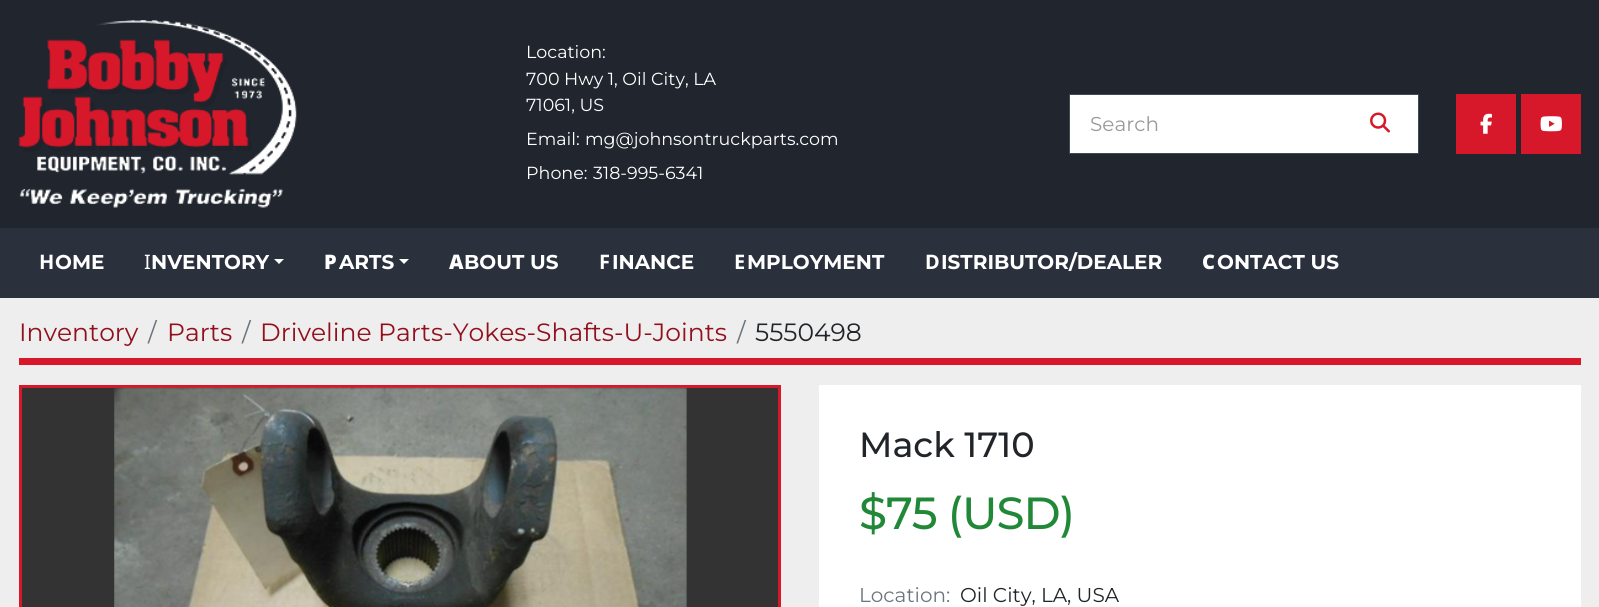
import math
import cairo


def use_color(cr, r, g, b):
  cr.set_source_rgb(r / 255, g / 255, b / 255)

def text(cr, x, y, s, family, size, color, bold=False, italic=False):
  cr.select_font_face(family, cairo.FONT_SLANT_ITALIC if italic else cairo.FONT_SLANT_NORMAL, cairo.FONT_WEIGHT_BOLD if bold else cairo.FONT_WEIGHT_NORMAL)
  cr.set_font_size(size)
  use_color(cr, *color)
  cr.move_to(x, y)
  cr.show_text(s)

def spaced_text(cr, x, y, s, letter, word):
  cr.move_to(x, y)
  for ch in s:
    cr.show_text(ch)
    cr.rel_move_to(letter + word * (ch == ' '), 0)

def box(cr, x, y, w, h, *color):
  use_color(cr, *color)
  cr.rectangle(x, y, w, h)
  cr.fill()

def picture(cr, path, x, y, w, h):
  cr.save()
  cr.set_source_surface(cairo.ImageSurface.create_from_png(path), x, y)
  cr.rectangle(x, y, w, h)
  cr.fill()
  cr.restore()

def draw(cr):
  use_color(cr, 238, 238, 238)
  cr.paint()
  box(cr, 0, 0, 1599, 228, 32, 37, 46)
  picture(cr, "img_01.png", 18, 20, 279, 188)
  use_color(cr, 255, 255, 255)
  cr.rectangle(1069.5, 94.5, 349, 59)
  cr.fill_preserve()
  use_color(cr, 63, 73, 91)
  cr.set_line_width(1)
  cr.stroke()
  picture(cr, "img_02.png", 1370, 112, 20, 21)
  box(cr, 1456, 94, 60, 60, 215, 24, 42)
  picture(cr, "img_03.png", 1480, 113, 12, 21)
  box(cr, 1521, 94, 60, 60, 215, 24, 42)
  picture(cr, "img_04.png", 1540, 116, 22, 16)
  box(cr, 0, 228, 1599, 70, 42, 49, 61)
  use_color(cr, 255, 255, 255)
  cr.new_path()
  cr.move_to(274, 259)
  cr.line_to(284, 259)
  cr.line_to(279, 264)
  cr.close_path()
  cr.fill()
  cr.new_path()
  cr.move_to(399, 259)
  cr.line_to(409, 259)
  cr.line_to(404, 264)
  cr.close_path()
  cr.fill()
  box(cr, 19, 358, 1562, 7, 215, 24, 42)
  use_color(cr, 51, 51, 51)
  cr.rectangle(20.5, 386.5, 759, 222)
  cr.fill_preserve()
  use_color(cr, 215, 24, 42)
  cr.set_line_width(3)
  cr.stroke()
  picture(cr, "img_05.png", 114, 387, 573, 220)
  box(cr, 819, 385, 762, 222, 255, 255, 255)
  text(cr, 526, 58, "Location:", "Montserrat Thin", 17.5, (255, 255, 255))
  text(cr, 526, 85, "700 Hwy 1, Oil City, LA", "Montserrat Thin", 17.5, (255, 255, 255))
  text(cr, 526, 111, "71061, US", "Montserrat Thin", 17.5, (255, 255, 255))
  text(cr, 526, 145, "Email:", "Montserrat Thin", 17.5, (255, 255, 255))
  text(cr, 585, 145, "mg@johnsontruckparts.com", "Montserrat Thin", 17.5, (255, 255, 255))
  text(cr, 526, 179, "Phone:", "Montserrat Thin", 17.5, (255, 255, 255))
  text(cr, 593, 179, "318-995-6341", "Montserrat Thin", 17.5, (255, 255, 255))
  text(cr, 1090, 131, "Search", "Montserrat Thin", 20, (153, 153, 153))
  text(cr, 39, 269, "H", "Noto Sans", 20, (255, 255, 255), bold=True)
  text(cr, 55, 269, "OME", "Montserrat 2 Thin", 20, (255, 255, 255))
  text(cr, 144, 269, "I", "Noto Sans", 20, (255, 255, 255))
  text(cr, 151, 269, "NVENTORY", "Montserrat 2 Thin", 20, (255, 255, 255))
  text(cr, 324, 269, "P", "Noto Sans Black", 20, (255, 255, 255))
  text(cr, 339, 269, "ARTS", "Montserrat 2 Thin", 20, (255, 255, 255))
  text(cr, 449, 269, "A", "Noto Sans Black", 20, (255, 255, 255))
  text(cr, 464, 269, "BOUT US", "Montserrat 2 Thin", 20, (255, 255, 255))
  text(cr, 599, 269, "F", "Noto Sans", 20, (255, 255, 255), bold=True)
  text(cr, 612, 269, "INANCE", "Montserrat 2 Thin", 20, (255, 255, 255))
  text(cr, 734, 269, "E", "Noto Sans", 20, (255, 255, 255), bold=True)
  text(cr, 747, 269, "MPLOYMENT", "Montserrat 2 Thin", 20, (255, 255, 255))
  text(cr, 925, 269, "D", "Noto Sans", 20, (255, 255, 255), bold=True)
  text(cr, 941, 269, "ISTRIBUTOR/DEALER", "Montserrat 2 Thin", 20, (255, 255, 255))
  text(cr, 1202, 269, "C", "Noto Sans Black", 20, (255, 255, 255))
  text(cr, 1217, 269, "ONTACT US", "Montserrat 2 Thin", 20, (255, 255, 255))
  text(cr, 19, 341, "Inventory", "Montserrat Thin", 25, (146, 16, 29))
  text(cr, 148, 341, "/", "Montserrat Thin", 25, (108, 117, 125))
  text(cr, 167, 341, "Parts", "Montserrat Thin", 25, (146, 16, 29))
  text(cr, 242, 341, "/", "Montserrat Thin", 25, (108, 117, 125))
  text(cr, 260, 341, "Driveline Parts-Yokes-Shafts-U-Joints", "Montserrat Thin", 25, (146, 16, 29))
  text(cr, 737, 341, "/", "Montserrat Thin", 25, (108, 117, 125))
  text(cr, 755, 341, "5550498", "Montserrat Thin", 25, (33, 37, 41))
  text(cr, 859, 457, "Mack 1710", "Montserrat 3 Thin", 35, (33, 37, 41))
  cr.set_font_size(45)
  use_color(cr, 33, 136, 56)
  spaced_text(cr, 859, 529, "$75 (USD)", -1, 0)
  text(cr, 859, 602, "Location:", "Montserrat Thin", 20, (108, 117, 125))
  text(cr, 960, 602, "Oil City, LA, USA", "Montserrat Thin", 20, (33, 37, 41))


surface = cairo.ImageSurface(cairo.FORMAT_RGB24, 1599, 607)
cr = cairo.Context(surface)
options = cairo.FontOptions()
options.set_hint_metrics(cairo.HINT_METRICS_OFF)
options.set_hint_style(cairo.HINT_STYLE_NONE)
cr.set_font_options(options)
cr.set_miter_limit(4)
draw(cr)
surface.write_to_png("out.png")
